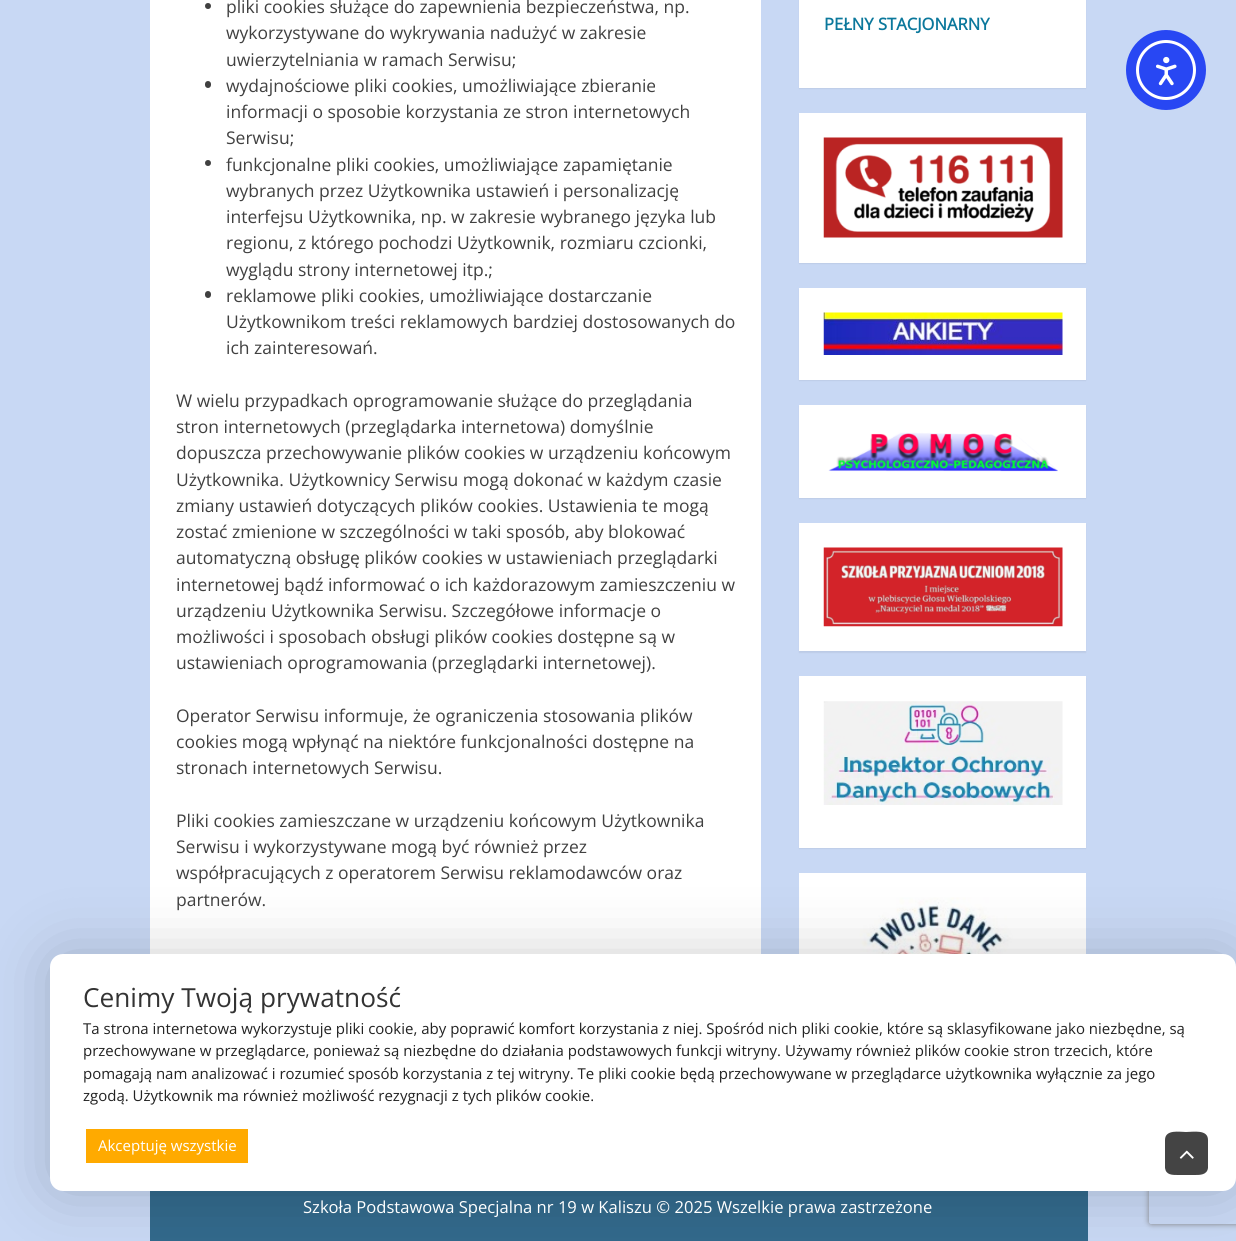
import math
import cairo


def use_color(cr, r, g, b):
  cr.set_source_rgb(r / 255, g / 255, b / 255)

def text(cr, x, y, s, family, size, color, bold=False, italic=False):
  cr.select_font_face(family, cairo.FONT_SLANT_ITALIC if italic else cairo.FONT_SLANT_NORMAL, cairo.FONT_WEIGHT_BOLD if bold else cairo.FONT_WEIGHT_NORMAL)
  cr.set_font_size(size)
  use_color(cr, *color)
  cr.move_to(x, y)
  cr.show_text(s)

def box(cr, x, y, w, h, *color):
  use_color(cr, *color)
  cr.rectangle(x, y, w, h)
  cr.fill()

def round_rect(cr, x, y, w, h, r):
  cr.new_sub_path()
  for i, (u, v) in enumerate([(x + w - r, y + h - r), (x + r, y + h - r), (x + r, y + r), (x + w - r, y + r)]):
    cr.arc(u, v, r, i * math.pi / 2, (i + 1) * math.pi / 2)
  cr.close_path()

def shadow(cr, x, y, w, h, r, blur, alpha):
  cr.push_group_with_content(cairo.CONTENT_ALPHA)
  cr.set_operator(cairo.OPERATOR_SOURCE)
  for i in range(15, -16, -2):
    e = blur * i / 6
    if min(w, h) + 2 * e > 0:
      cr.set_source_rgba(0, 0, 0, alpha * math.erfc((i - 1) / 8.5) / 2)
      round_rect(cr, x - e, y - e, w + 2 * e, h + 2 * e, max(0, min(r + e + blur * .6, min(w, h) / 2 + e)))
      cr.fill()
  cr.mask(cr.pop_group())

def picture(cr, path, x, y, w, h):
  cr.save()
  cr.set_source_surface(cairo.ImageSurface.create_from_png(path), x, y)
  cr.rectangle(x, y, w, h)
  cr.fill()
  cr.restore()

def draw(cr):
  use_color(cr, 200, 216, 244)
  cr.paint()
  box(cr, 150, 0, 611, 954, 255, 255, 255)
  use_color(cr, 64, 64, 64)
  cr.arc(208, 6, 3, 0, 2 * math.pi)
  cr.fill()
  round_rect(cr, 205, 81, 6, 7, 3)
  cr.fill()
  cr.arc(208, 163, 3, 0, 2 * math.pi)
  cr.fill()
  round_rect(cr, 205, 291, 6, 7, 3)
  cr.fill()
  use_color(cr, 0, 0, 0)
  shadow(cr, 799, -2, 287, 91, 0, 0.5, 0.06)
  box(cr, 799, 0, 287, 88, 255, 255, 255)
  use_color(cr, 0, 0, 0)
  shadow(cr, 799, 114, 287, 150, 0, 0.5, 0.06)
  box(cr, 799, 113, 287, 150, 255, 255, 255)
  picture(cr, "img_01.png", 823, 137, 240, 101)
  use_color(cr, 0, 0, 0)
  shadow(cr, 799, 289, 287, 92, 0, 0.5, 0.06)
  box(cr, 799, 288, 287, 92, 255, 255, 255)
  picture(cr, "img_02.png", 823, 312, 240, 43)
  use_color(cr, 0, 0, 0)
  shadow(cr, 799, 406, 287, 93, 0, 0.5, 0.06)
  box(cr, 799, 405, 287, 93, 255, 255, 255)
  picture(cr, "img_03.png", 828, 432, 230, 40)
  use_color(cr, 0, 0, 0)
  shadow(cr, 799, 524, 287, 129, 0, 0.5, 0.06)
  box(cr, 799, 523, 287, 128, 255, 255, 255)
  picture(cr, "img_04.png", 823, 547, 240, 80)
  use_color(cr, 0, 0, 0)
  shadow(cr, 799, 678, 287, 171, 0, 0.5, 0.06)
  box(cr, 799, 676, 287, 172, 255, 255, 255)
  picture(cr, "img_05.png", 823, 701, 240, 104)
  box(cr, 799, 873, 287, 81, 255, 255, 255)
  picture(cr, "img_06.png", 855, 897, 158, 57)
  box(cr, 150, 1191, 938, 50, 50, 105, 139)
  use_color(cr, 40, 71, 243)
  cr.arc(1166, 70, 40, 0, 2 * math.pi)
  cr.fill()
  cr.arc(1166, 70, 28.5, 0, 2 * math.pi)
  use_color(cr, 255, 255, 255)
  cr.set_line_width(3)
  cr.stroke()
  picture(cr, "img_07.png", 1156, 56, 21, 30)
  use_color(cr, 0, 0, 0)
  shadow(cr, 50, 954, 1186, 237, 13, 31, 0.19)
  cr.save()
  cr.set_fill_rule(cairo.FILL_RULE_EVEN_ODD)
  cr.new_path()
  cr.move_to(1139, 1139)
  cr.line_to(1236, 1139)
  cr.line_to(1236, 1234)
  cr.line_to(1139, 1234)
  cr.close_path()
  cr.move_to(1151.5, 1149)
  cr.line_to(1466.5, 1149)
  cr.curve_to(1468, 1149, 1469, 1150, 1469, 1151.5)
  cr.line_to(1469, 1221.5)
  cr.curve_to(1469, 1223, 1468, 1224, 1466.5, 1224)
  cr.line_to(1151.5, 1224)
  cr.curve_to(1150, 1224, 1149, 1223, 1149, 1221.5)
  cr.line_to(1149, 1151.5)
  cr.curve_to(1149, 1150, 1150, 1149, 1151.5, 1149)
  cr.close_path()
  cr.clip()
  use_color(cr, 128, 128, 128)
  shadow(cr, 1149, 1149, 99, 75, 2.5, 3, 1)
  cr.restore()
  use_color(cr, 255, 255, 255)
  round_rect(cr, 50, 954, 1186, 237, 13)
  cr.fill()
  box(cr, 86, 1129, 162, 34, 255, 170, 0)
  use_color(cr, 68, 68, 68)
  cr.new_path()
  cr.move_to(1208, 1140)
  cr.line_to(1208, 1168)
  cr.curve_to(1207, 1175, 1200, 1175, 1195, 1175)
  cr.line_to(1178, 1175)
  cr.curve_to(1172, 1175, 1166, 1175, 1165, 1168)
  cr.line_to(1165, 1140)
  cr.curve_to(1165, 1129, 1180, 1132, 1186, 1132)
  cr.curve_to(1193, 1132, 1208, 1129, 1208, 1140)
  cr.close_path()
  cr.fill()
  picture(cr, "img_08.png", 1179, 1150, 15, 9)
  text(cr, 226, 13, "pliki cookies służące do zapewnienia bezpieczeństwa, np.", "Open Sans", 17.5, (64, 64, 64))
  text(cr, 226, 39, "wykorzystywane do wykrywania nadużyć w zakresie", "Open Sans", 17.5, (64, 64, 64))
  text(cr, 226, 66, "uwierzytelniania w ramach Serwisu;", "Open Sans", 17.5, (64, 64, 64))
  text(cr, 226, 92, "wydajnościowe pliki cookies, umożliwiające zbieranie", "Open Sans", 17.5, (64, 64, 64))
  text(cr, 226, 118, "informacji o sposobie korzystania ze stron internetowych", "Open Sans", 17.5, (64, 64, 64))
  text(cr, 226, 144, "Serwisu;", "Open Sans", 17.5, (64, 64, 64))
  text(cr, 226, 171, "funkcjonalne pliki cookies, umożliwiające zapamiętanie", "Open Sans", 17.5, (64, 64, 64))
  text(cr, 226, 197, "wybranych przez Użytkownika ustawień i personalizację", "Open Sans", 17.5, (64, 64, 64))
  text(cr, 226, 223, "interfejsu Użytkownika, np. w zakresie wybranego języka lub", "Open Sans", 17.5, (64, 64, 64))
  text(cr, 226, 249, "regionu, z którego pochodzi Użytkownik, rozmiaru czcionki,", "Open Sans", 17.5, (64, 64, 64))
  text(cr, 226, 276, "wyglądu strony internetowej itp.;", "Open Sans", 17.5, (64, 64, 64))
  text(cr, 226, 302, "reklamowe pliki cookies, umożliwiające dostarczanie", "Open Sans", 17.5, (64, 64, 64))
  text(cr, 226, 328, "Użytkownikom treści reklamowych bardziej dostosowanych do", "Open Sans", 17.5, (64, 64, 64))
  text(cr, 226, 354, "ich zainteresowań.", "Open Sans", 17.5, (64, 64, 64))
  text(cr, 176, 407, "W wielu przypadkach oprogramowanie służące do przeglądania", "Open Sans", 17.5, (64, 64, 64))
  text(cr, 176, 433, "stron internetowych (przeglądarka internetowa) domyślnie", "Open Sans", 17.5, (64, 64, 64))
  text(cr, 176, 459, "dopuszcza przechowywanie plików cookies w urządzeniu końcowym", "Open Sans", 17.5, (64, 64, 64))
  text(cr, 176, 486, "Użytkownika. Użytkownicy Serwisu mogą dokonać w każdym czasie", "Open Sans", 17.5, (64, 64, 64))
  text(cr, 176, 512, "zmiany ustawień dotyczących plików cookies. Ustawienia te mogą", "Open Sans", 17.5, (64, 64, 64))
  text(cr, 176, 538, "zostać zmienione w szczególności w taki sposób, aby blokować", "Open Sans", 17.5, (64, 64, 64))
  text(cr, 176, 564, "automatyczną obsługę plików cookies w ustawieniach przeglądarki", "Open Sans", 17.5, (64, 64, 64))
  text(cr, 176, 591, "internetowej bądź informować o ich każdorazowym zamieszczeniu w", "Open Sans", 17.5, (64, 64, 64))
  text(cr, 176, 617, "urządzeniu Użytkownika Serwisu. Szczegółowe informacje o", "Open Sans", 17.5, (64, 64, 64))
  text(cr, 176, 643, "możliwości i sposobach obsługi plików cookies dostępne są w", "Open Sans", 17.5, (64, 64, 64))
  text(cr, 176, 669, "ustawieniach oprogramowania (przeglądarki internetowej).", "Open Sans", 17.5, (64, 64, 64))
  text(cr, 176, 722, "Operator Serwisu informuje, że ograniczenia stosowania plików", "Open Sans", 17.5, (64, 64, 64))
  text(cr, 176, 748, "cookies mogą wpłynąć na niektóre funkcjonalności dostępne na", "Open Sans", 17.5, (64, 64, 64))
  text(cr, 176, 774, "stronach internetowych Serwisu.", "Open Sans", 17.5, (64, 64, 64))
  text(cr, 176, 827, "Pliki cookies zamieszczane w urządzeniu końcowym Użytkownika", "Open Sans", 17.5, (64, 64, 64))
  text(cr, 176, 853, "Serwisu i wykorzystywane mogą być również przez", "Open Sans", 17.5, (64, 64, 64))
  text(cr, 176, 879, "współpracujących z operatorem Serwisu reklamodawców oraz", "Open Sans", 17.5, (64, 64, 64))
  text(cr, 176, 906, "partnerów.", "Open Sans", 17.5, (64, 64, 64))
  text(cr, 824, 30, "PEŁNY STACJONARNY", "Open Sans", 16.6, (11, 120, 156), bold=True)
  text(cr, 303, 1213, "Szkoła Podstawowa Specjalna nr 19 w Kaliszu © 2025 Wszelkie prawa zastrzeżone", "Open Sans", 16.6, (255, 255, 255))
  text(cr, 83, 1007, "Cenimy Twoją prywatność", "Open Sans", 26.25, (51, 51, 51))
  text(cr, 83, 1034, "Ta strona internetowa wykorzystuje pliki cookie, aby poprawić komfort korzystania z niej. Spośród nich pliki cookie, które są sklasyfikowane jako niezbędne, są", "Open Sans", 15, (34, 34, 34))
  text(cr, 83, 1056, "przechowywane w przeglądarce, ponieważ są niezbędne do działania podstawowych funkcji witryny. Używamy również plików cookie stron trzecich, które", "Open Sans", 15, (34, 34, 34))
  text(cr, 83, 1079, "pomagają nam analizować i rozumieć sposób korzystania z tej witryny. Te pliki cookie będą przechowywane w przeglądarce użytkownika wyłącznie za jego", "Open Sans", 15, (34, 34, 34))
  text(cr, 83, 1101, "zgodą. Użytkownik ma również możliwość rezygnacji z tych plików cookie.", "Open Sans", 15, (34, 34, 34))
  text(cr, 98, 1151, "Akceptuję wszystkie", "Open Sans", 15, (255, 255, 255))


surface = cairo.ImageSurface(cairo.FORMAT_RGB24, 1236, 1241)
cr = cairo.Context(surface)
options = cairo.FontOptions()
options.set_hint_metrics(cairo.HINT_METRICS_OFF)
options.set_hint_style(cairo.HINT_STYLE_NONE)
cr.set_font_options(options)
cr.set_miter_limit(4)
draw(cr)
surface.write_to_png("out.png")
